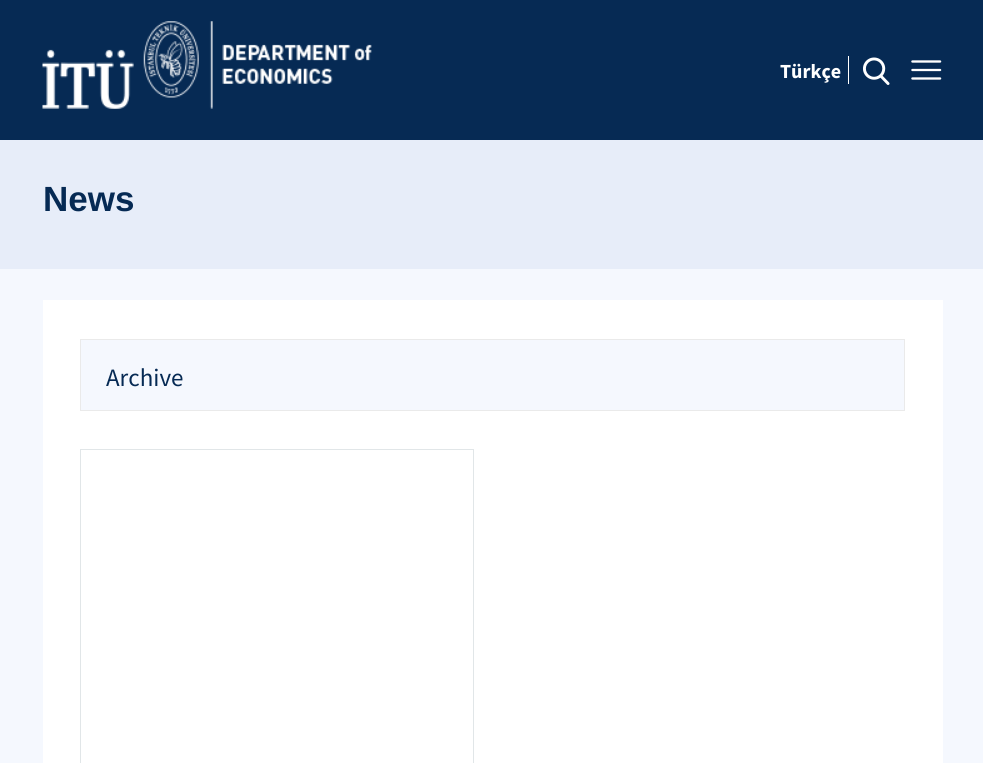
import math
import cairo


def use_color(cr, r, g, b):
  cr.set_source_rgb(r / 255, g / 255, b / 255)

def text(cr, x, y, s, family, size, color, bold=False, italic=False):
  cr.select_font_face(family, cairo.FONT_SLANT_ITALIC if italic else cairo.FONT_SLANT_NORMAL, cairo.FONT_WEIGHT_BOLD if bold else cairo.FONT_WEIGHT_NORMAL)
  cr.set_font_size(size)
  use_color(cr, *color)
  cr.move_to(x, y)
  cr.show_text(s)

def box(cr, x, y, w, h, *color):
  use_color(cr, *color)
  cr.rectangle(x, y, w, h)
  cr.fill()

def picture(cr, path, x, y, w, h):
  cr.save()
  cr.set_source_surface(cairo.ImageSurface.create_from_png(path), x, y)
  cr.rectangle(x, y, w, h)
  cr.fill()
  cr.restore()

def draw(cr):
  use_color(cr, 245, 248, 254)
  cr.paint()
  box(cr, 0, 0, 983, 140, 6, 42, 84)
  picture(cr, "img_01.png", 42, 21, 330, 88)
  box(cr, 848, 56, 1, 28, 255, 255, 255)
  picture(cr, "img_02.png", 863, 57, 27, 28)
  picture(cr, "img_03.png", 911, 60, 31, 20)
  box(cr, 0, 140, 983, 129, 231, 237, 249)
  box(cr, 43, 300, 900, 463, 255, 255, 255)
  use_color(cr, 245, 248, 254)
  cr.rectangle(80.5, 339.5, 824, 71)
  cr.fill_preserve()
  use_color(cr, 234, 234, 234)
  cr.set_line_width(1)
  cr.stroke()
  cr.rectangle(80.5, 449.5, 393, 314)
  use_color(cr, 225, 230, 232)
  cr.stroke()
  text(cr, 780, 78, "Türkçe", "Source Sans Pro", 20, (255, 255, 255), bold=True)
  text(cr, 43, 211, "News", "Liberation Sans", 35, (6, 42, 84), bold=True)
  text(cr, 106, 386, "Archive", "Source Sans Pro", 25, (6, 42, 84))


surface = cairo.ImageSurface(cairo.FORMAT_RGB24, 983, 763)
cr = cairo.Context(surface)
options = cairo.FontOptions()
options.set_hint_metrics(cairo.HINT_METRICS_OFF)
options.set_hint_style(cairo.HINT_STYLE_NONE)
cr.set_font_options(options)
cr.set_miter_limit(4)
draw(cr)
surface.write_to_png("out.png")
